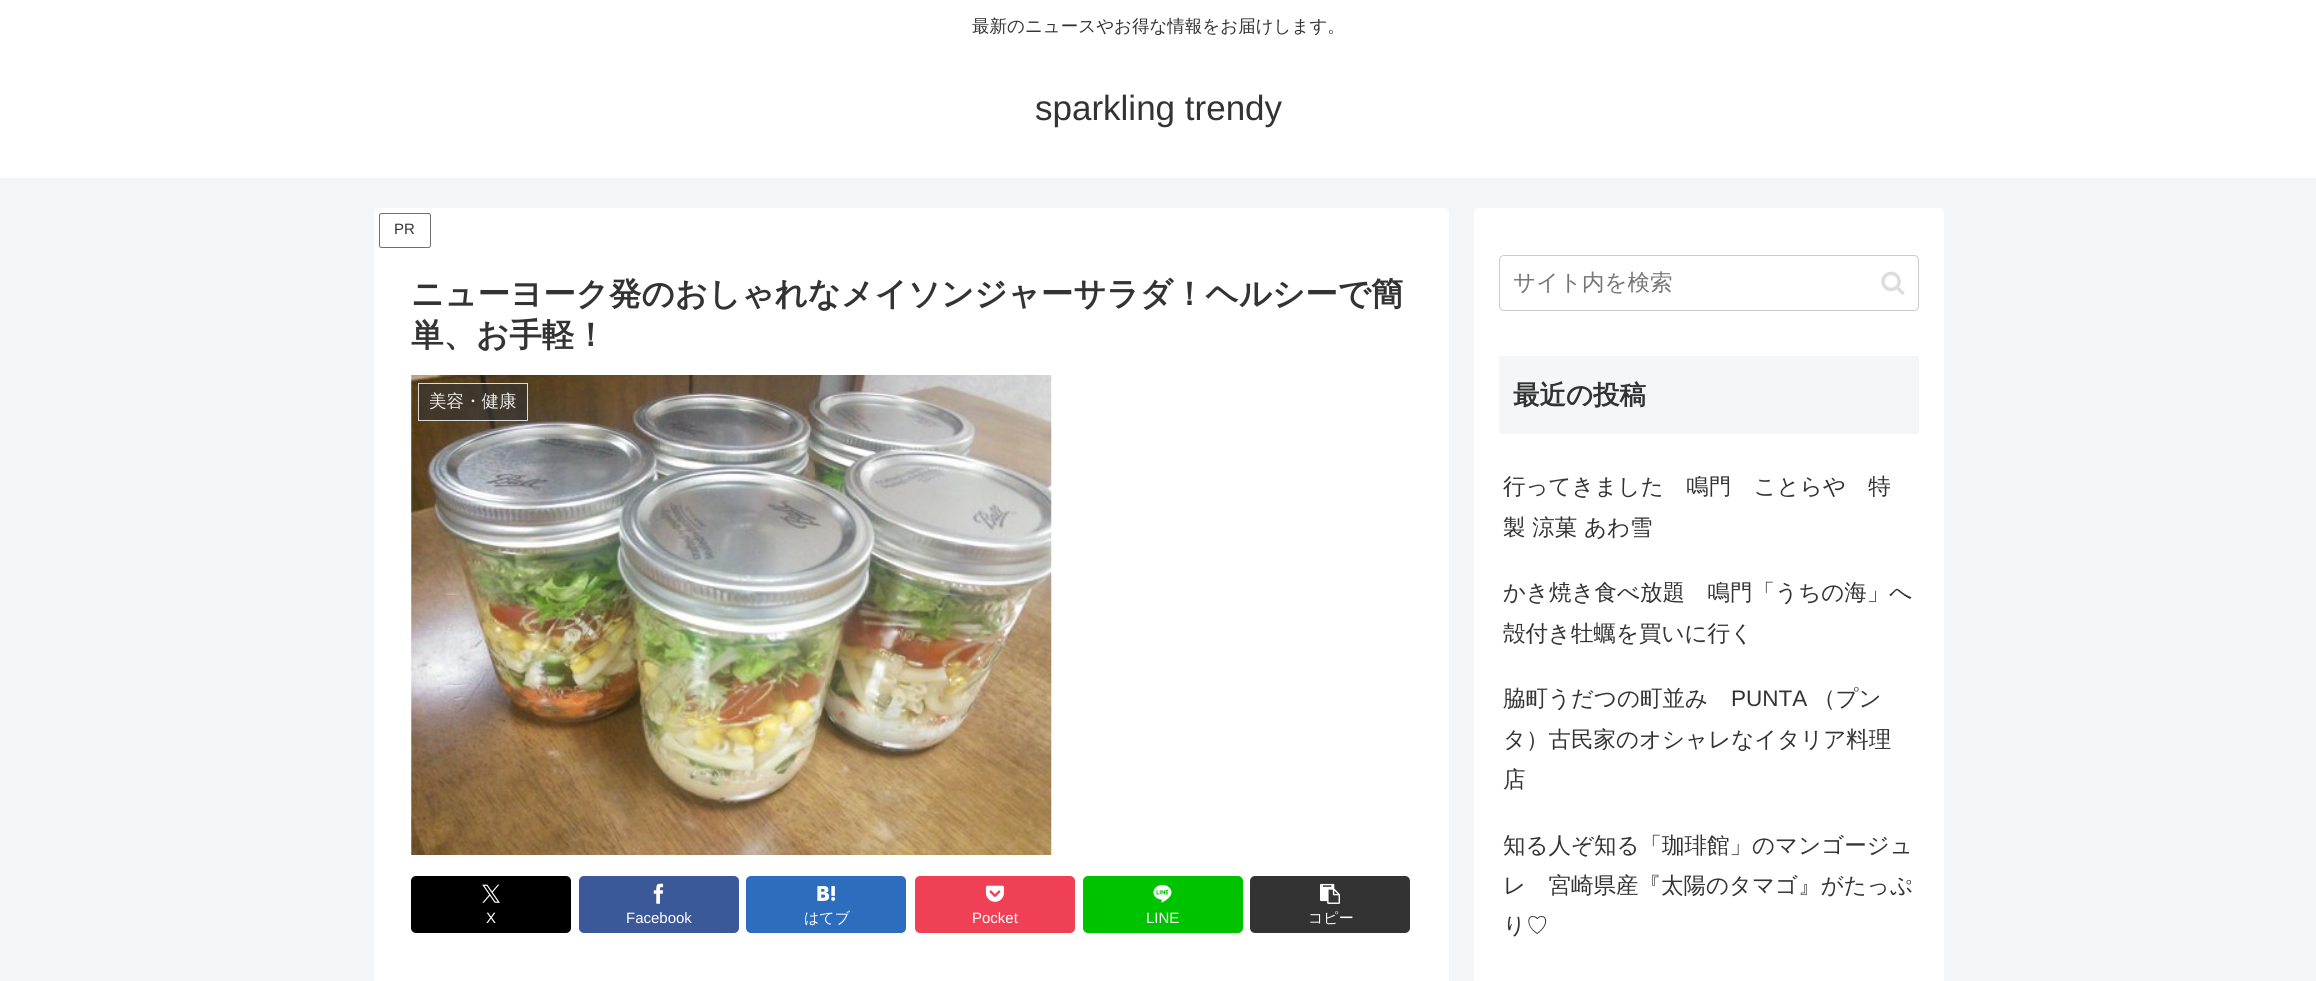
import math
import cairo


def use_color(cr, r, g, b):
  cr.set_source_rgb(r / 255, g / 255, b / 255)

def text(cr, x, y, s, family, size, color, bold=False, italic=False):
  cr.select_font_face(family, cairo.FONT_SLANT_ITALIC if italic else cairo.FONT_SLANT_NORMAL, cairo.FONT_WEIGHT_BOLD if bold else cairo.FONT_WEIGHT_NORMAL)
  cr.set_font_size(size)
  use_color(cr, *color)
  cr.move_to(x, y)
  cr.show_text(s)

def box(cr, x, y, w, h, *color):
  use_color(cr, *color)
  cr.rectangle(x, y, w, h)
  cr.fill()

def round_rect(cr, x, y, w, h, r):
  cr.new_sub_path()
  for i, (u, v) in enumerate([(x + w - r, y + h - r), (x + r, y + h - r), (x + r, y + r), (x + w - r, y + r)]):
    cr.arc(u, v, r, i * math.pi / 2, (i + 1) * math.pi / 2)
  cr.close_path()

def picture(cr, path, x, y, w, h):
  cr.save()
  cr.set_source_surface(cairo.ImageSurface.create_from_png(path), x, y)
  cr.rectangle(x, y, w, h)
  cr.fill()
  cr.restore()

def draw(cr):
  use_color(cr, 244, 245, 247)
  cr.paint()
  box(cr, 0, 0, 2316, 178, 255, 255, 255)
  round_rect(cr, 374, 208, 1075, 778, 5)
  cr.fill()
  round_rect(cr, 379.5, 213.5, 51, 34, 2)
  use_color(cr, 112, 112, 112)
  cr.set_line_width(1)
  cr.stroke()
  picture(cr, "img_01.png", 411, 375, 641, 480)
  cr.set_source_rgba(0.2, 0.2, 0.2, 0.63)
  cr.rectangle(418, 383, 110, 38)
  cr.fill()
  cr.rectangle(418.5, 383.5, 109, 37)
  cr.set_source_rgba(0.933, 0.933, 0.933, 0.9)
  cr.stroke()
  use_color(cr, 0, 0, 0)
  round_rect(cr, 411, 876, 160, 57, 5)
  cr.fill()
  picture(cr, "img_02.png", 482, 884, 18, 19)
  use_color(cr, 59, 89, 152)
  round_rect(cr, 579, 876, 160, 57, 5)
  cr.fill()
  picture(cr, "img_03.png", 653, 883, 11, 21)
  use_color(cr, 44, 110, 189)
  round_rect(cr, 746, 876, 160, 57, 5)
  cr.fill()
  picture(cr, "img_04.png", 817, 886, 19, 15)
  use_color(cr, 239, 64, 86)
  round_rect(cr, 915, 876, 160, 57, 5)
  cr.fill()
  picture(cr, "img_05.png", 985, 885, 19, 17)
  use_color(cr, 0, 195, 0)
  round_rect(cr, 1083, 876, 160, 57, 5)
  cr.fill()
  picture(cr, "img_06.png", 1153, 885, 19, 18)
  use_color(cr, 51, 51, 51)
  round_rect(cr, 1250, 876, 160, 57, 5)
  cr.fill()
  picture(cr, "img_07.png", 1320, 883, 20, 21)
  use_color(cr, 255, 255, 255)
  round_rect(cr, 1474, 208, 470, 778, 5)
  cr.fill()
  round_rect(cr, 1499.5, 255.5, 419, 55, 4.5)
  use_color(cr, 204, 204, 204)
  cr.stroke()
  picture(cr, "img_08.png", 1881, 271, 24, 24)
  use_color(cr, 245, 246, 247)
  round_rect(cr, 1499, 356, 420, 78, 2.5)
  cr.fill()
  text(cr, 972, 32, "最新のニュースやお得な情報をお届けします。", "WenQuanYi Zen Hei Medium", 17.5, (51, 51, 51))
  text(cr, 1035, 120, "sparkling trendy", "Liberation Sans", 35, (51, 51, 51))
  text(cr, 394, 234, "PR", "Liberation Sans", 15, (51, 51, 51))
  text(cr, 411, 305, "ニューヨーク発のおしゃれなメイソンジャーサラダ！ヘルシーで簡", "WenQuanYi Zen Hei", 32.5, (51, 51, 51), bold=True)
  text(cr, 411, 346, "単、お手軽！", "WenQuanYi Zen Hei", 32.5, (51, 51, 51), bold=True)
  text(cr, 429, 407, "美容・健康", "WenQuanYi Zen Hei Medium", 17.5, (236, 235, 234))
  text(cr, 486, 923, "X", "Liberation Sans", 15, (255, 255, 255))
  text(cr, 626, 923, "Facebook", "Liberation Sans", 15, (255, 255, 255))
  text(cr, 804, 923, "はてブ", "WenQuanYi Zen Hei Medium", 15, (255, 255, 255))
  text(cr, 972, 923, "Pocket", "Liberation Sans", 15, (255, 255, 255))
  text(cr, 1146, 923, "LINE", "Liberation Sans", 15, (255, 255, 255))
  text(cr, 1308, 923, "コピー", "WenQuanYi Zen Hei Medium", 15, (255, 255, 255))
  text(cr, 1513, 290, "サイト内を検索", "WenQuanYi Zen Hei Medium", 22.5, (117, 117, 117))
  text(cr, 1513, 404, "最近の投稿", "WenQuanYi Zen Hei", 26.5, (51, 51, 51), bold=True)
  text(cr, 1503, 494, "行ってきました　鳴門　ことらや　特", "WenQuanYi Zen Hei Medium", 22.5, (51, 51, 51))
  text(cr, 1503, 535, "製 涼菓 あわ雪", "WenQuanYi Zen Hei Medium", 22.5, (51, 51, 51))
  text(cr, 1503, 600, "かき焼き食べ放題　鳴門「うちの海」へ", "WenQuanYi Zen Hei Medium", 22.5, (51, 51, 51))
  text(cr, 1503, 641, "殻付き牡蠣を買いに行く", "WenQuanYi Zen Hei Medium", 22.5, (51, 51, 51))
  text(cr, 1503, 706, "脇町うだつの町並み", "WenQuanYi Zen Hei Medium", 22.5, (51, 51, 51))
  text(cr, 1731, 706, "PUNTA", "Liberation Sans", 22.5, (51, 51, 51))
  text(cr, 1813, 706, "（プン", "WenQuanYi Zen Hei Medium", 22.5, (51, 51, 51))
  text(cr, 1503, 747, "タ）古民家のオシャレなイタリア料理", "WenQuanYi Zen Hei Medium", 22.5, (51, 51, 51))
  text(cr, 1503, 787, "店", "WenQuanYi Zen Hei Medium", 22.5, (51, 51, 51))
  text(cr, 1503, 853, "知る人ぞ知る「珈琲館」のマンゴージュ", "WenQuanYi Zen Hei Medium", 22.5, (51, 51, 51))
  text(cr, 1503, 893, "レ　宮崎県産『太陽のタマゴ』がたっぷ", "WenQuanYi Zen Hei Medium", 22.5, (51, 51, 51))
  text(cr, 1503, 933, "り♡", "WenQuanYi Zen Hei Medium", 22.5, (51, 51, 51))


surface = cairo.ImageSurface(cairo.FORMAT_RGB24, 2316, 981)
cr = cairo.Context(surface)
options = cairo.FontOptions()
options.set_hint_metrics(cairo.HINT_METRICS_OFF)
options.set_hint_style(cairo.HINT_STYLE_NONE)
cr.set_font_options(options)
cr.set_miter_limit(4)
draw(cr)
surface.write_to_png("out.png")
